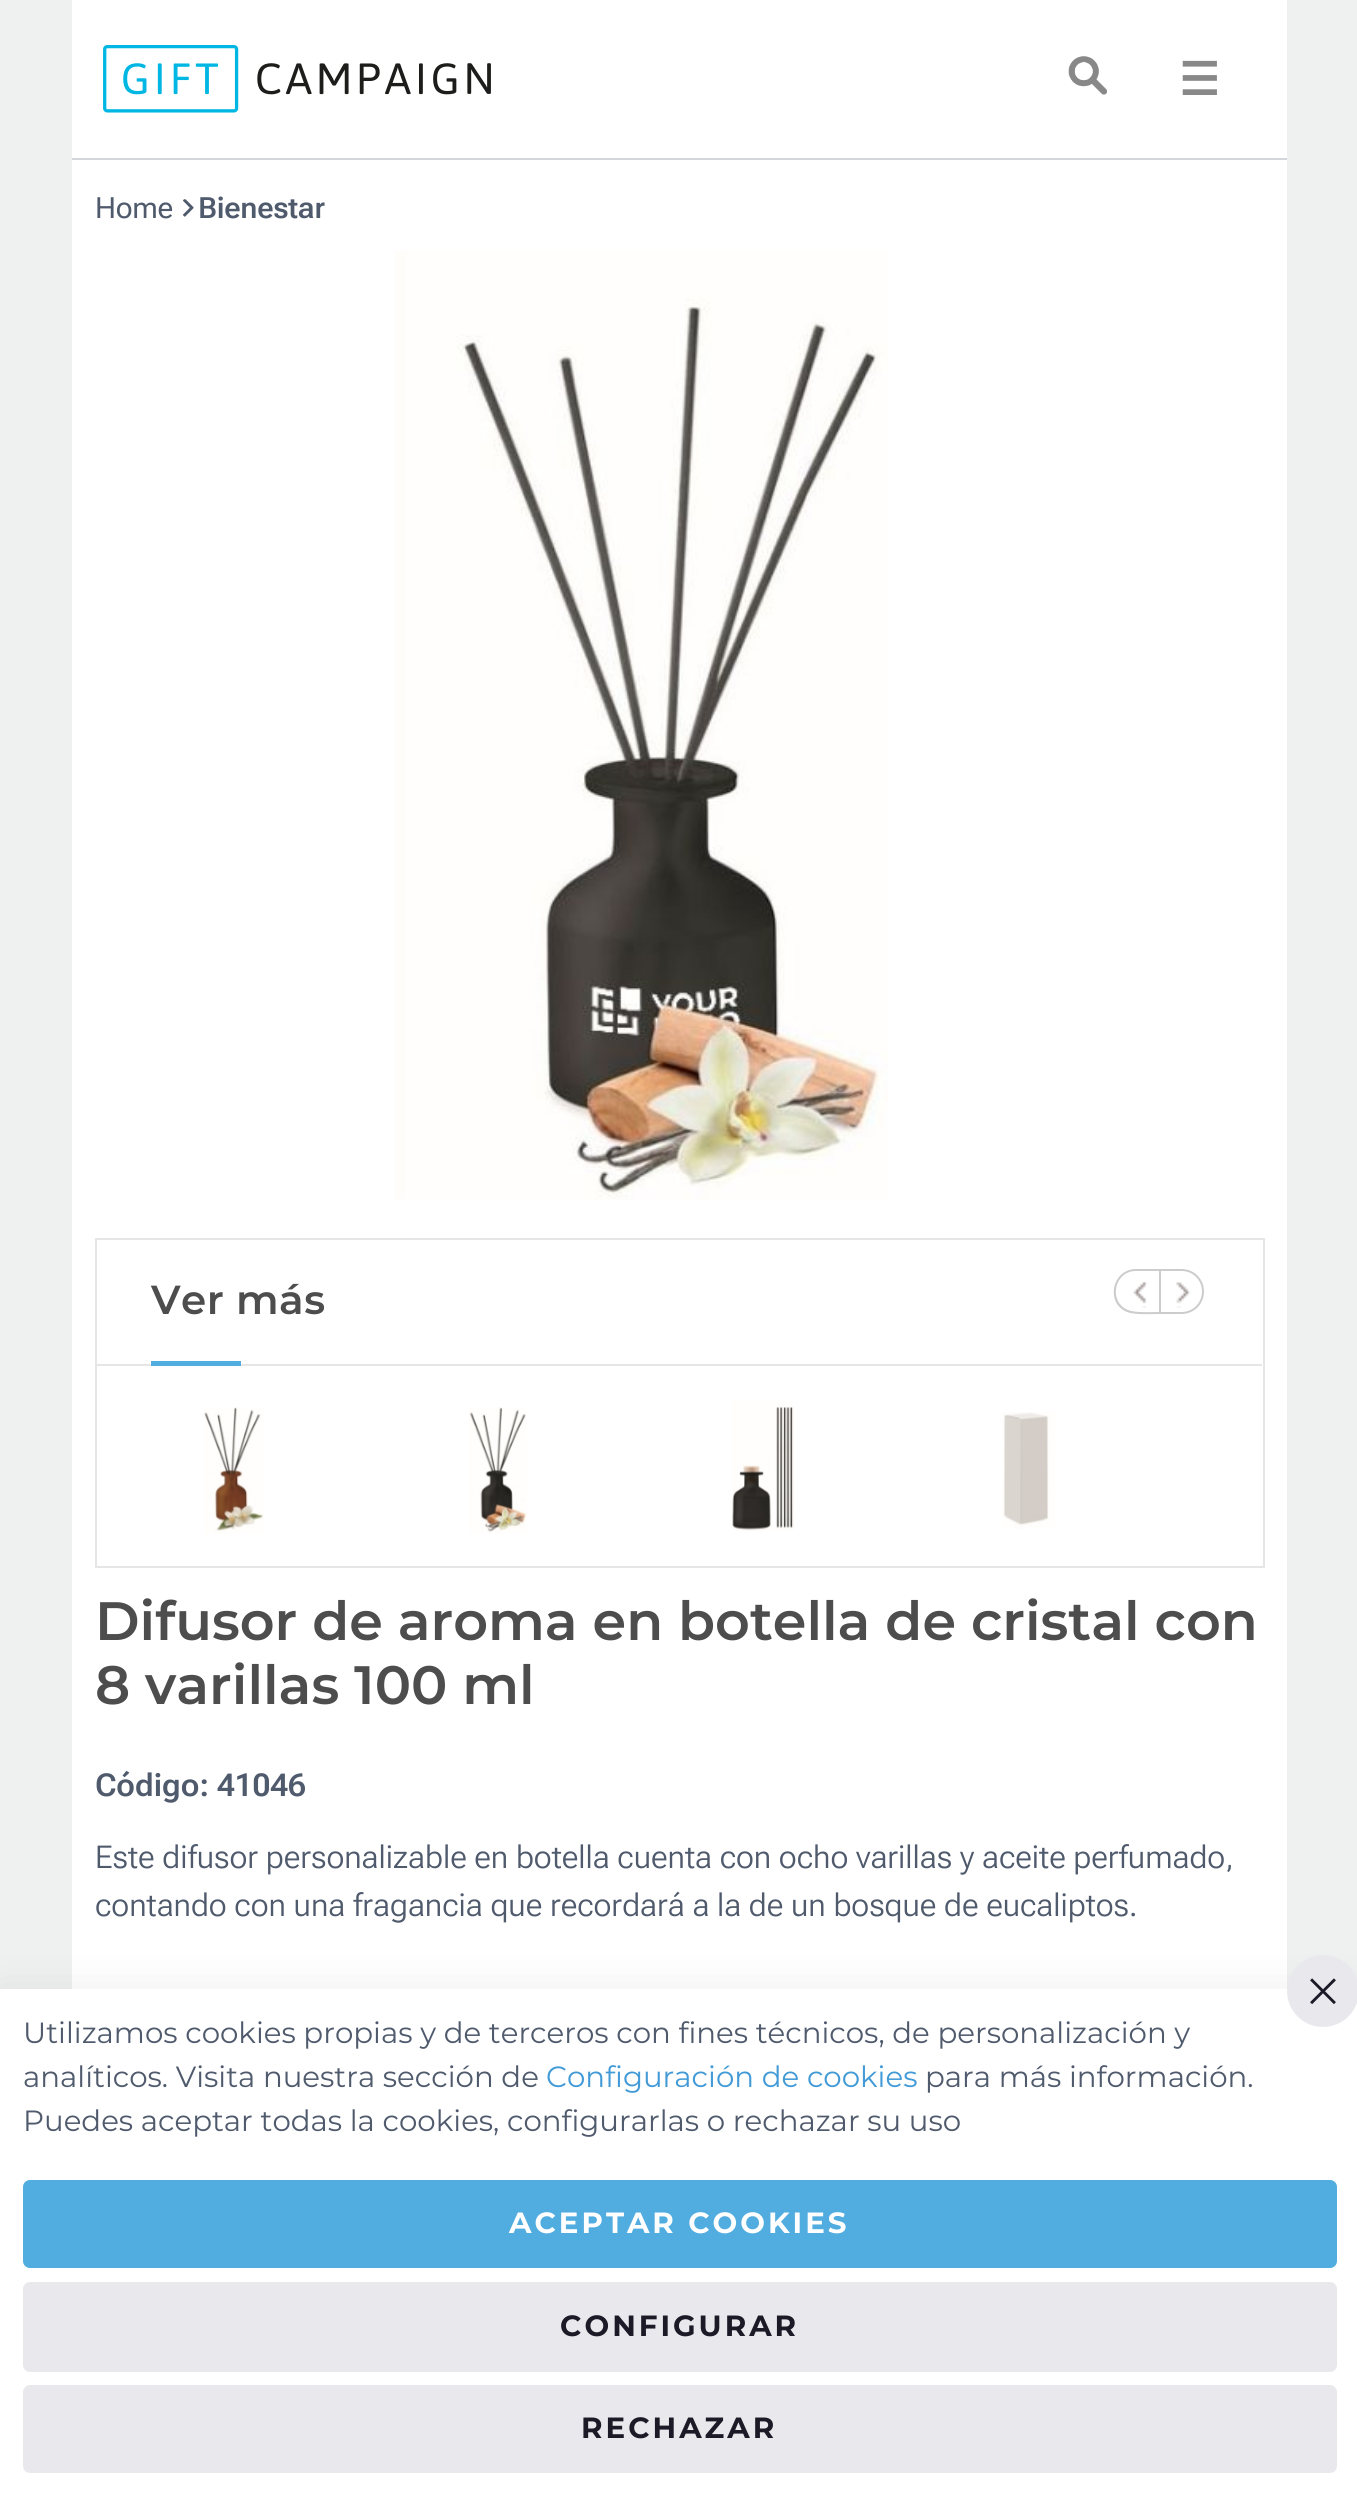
import math
import cairo


def use_color(cr, r, g, b):
  cr.set_source_rgb(r / 255, g / 255, b / 255)

def text(cr, x, y, s, family, size, color, bold=False, italic=False):
  cr.select_font_face(family, cairo.FONT_SLANT_ITALIC if italic else cairo.FONT_SLANT_NORMAL, cairo.FONT_WEIGHT_BOLD if bold else cairo.FONT_WEIGHT_NORMAL)
  cr.set_font_size(size)
  use_color(cr, *color)
  cr.move_to(x, y)
  cr.show_text(s)

def spaced_text(cr, x, y, s, letter, word):
  cr.move_to(x, y)
  for ch in s:
    cr.show_text(ch)
    cr.rel_move_to(letter + word * (ch == ' '), 0)

def box(cr, x, y, w, h, *color):
  use_color(cr, *color)
  cr.rectangle(x, y, w, h)
  cr.fill()

def round_rect(cr, x, y, w, h, r):
  cr.new_sub_path()
  for i, (u, v) in enumerate([(x + w - r, y + h - r), (x + r, y + h - r), (x + r, y + r), (x + w - r, y + r)]):
    cr.arc(u, v, r, i * math.pi / 2, (i + 1) * math.pi / 2)
  cr.close_path()

def shadow(cr, x, y, w, h, r, blur, alpha):
  cr.push_group_with_content(cairo.CONTENT_ALPHA)
  cr.set_operator(cairo.OPERATOR_SOURCE)
  for i in range(15, -16, -2):
    e = blur * i / 6
    if min(w, h) + 2 * e > 0:
      cr.set_source_rgba(0, 0, 0, alpha * math.erfc((i - 1) / 8.5) / 2)
      round_rect(cr, x - e, y - e, w + 2 * e, h + 2 * e, max(0, min(r + e + blur * .6, min(w, h) / 2 + e)))
      cr.fill()
  cr.mask(cr.pop_group())

def picture(cr, path, x, y, w, h):
  cr.save()
  cr.set_source_surface(cairo.ImageSurface.create_from_png(path), x, y)
  cr.rectangle(x, y, w, h)
  cr.fill()
  cr.restore()

def draw(cr):
  use_color(cr, 238, 241, 240)
  cr.paint()
  box(cr, 72, 0, 1215, 1989, 255, 255, 255)
  picture(cr, "img_01.png", 103, 45, 388, 68)
  picture(cr, "img_02.png", 1068, 56, 39, 39)
  box(cr, 72, 158, 1215, 2, 211, 214, 219)
  picture(cr, "img_03.png", 183, 199, 11, 18)
  picture(cr, "img_04.png", 395, 250, 493, 950)
  cr.rectangle(96, 1239, 1168, 328)
  use_color(cr, 230, 230, 230)
  cr.stroke()
  box(cr, 97, 1364, 1165, 2, 230, 230, 230)
  box(cr, 151, 1361, 90, 5, 81, 172, 224)
  use_color(cr, 204, 204, 204)
  cr.set_fill_rule(cairo.FILL_RULE_EVEN_ODD)
  cr.new_path()
  cr.move_to(1136, 1269)
  cr.line_to(1159, 1269)
  cr.line_to(1159, 1314)
  cr.curve_to(1150, 1314, 1135, 1315, 1127, 1312)
  cr.curve_to(1105, 1303, 1112, 1269, 1136, 1269)
  cr.close_path()
  cr.move_to(1136, 1271)
  cr.line_to(1159, 1271)
  cr.line_to(1159, 1312)
  cr.curve_to(1151, 1312, 1135, 1313, 1128, 1310)
  cr.curve_to(1108, 1302, 1114, 1271, 1136, 1271)
  cr.close_path()
  cr.fill()
  picture(cr, "img_05.png", 1133, 1281, 15, 27)
  cr.new_path()
  cr.move_to(1160, 1270)
  cr.line_to(1181.5, 1270)
  cr.curve_to(1193.5, 1270, 1203, 1279.5, 1203, 1291.5)
  cr.curve_to(1203, 1303.5, 1193.5, 1313, 1181.5, 1313)
  cr.line_to(1160, 1313)
  cr.close_path()
  cr.stroke()
  picture(cr, "img_06.png", 1176, 1282, 15, 26)
  picture(cr, "img_07.png", 204, 1407, 60, 127)
  picture(cr, "img_08.png", 469, 1407, 58, 127)
  picture(cr, "img_09.png", 732, 1401, 62, 130)
  picture(cr, "img_10.png", 1002, 1412, 55, 117)
  use_color(cr, 0, 0, 0)
  shadow(cr, 0, 1985, 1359, 506, 0, 20, 0.06)
  box(cr, 0, 1989, 1357, 506, 255, 255, 255)
  use_color(cr, 233, 233, 237)
  cr.arc(1323, 1991, 36, 0, 2 * math.pi)
  cr.fill()
  picture(cr, "img_11.png", 1310, 1978, 26, 27)
  use_color(cr, 81, 172, 224)
  round_rect(cr, 23, 2180, 1314, 88, 7)
  cr.fill()
  use_color(cr, 233, 233, 237)
  round_rect(cr, 23, 2282, 1314, 90, 7)
  cr.fill()
  round_rect(cr, 23, 2385, 1314, 88, 7)
  cr.fill()
  text(cr, 1179, 95, "☰", "DejaVu Sans", 45, (136, 136, 136), bold=True)
  cr.select_font_face("Roboto Flex")
  cr.set_font_size(29.25)
  use_color(cr, 79, 90, 109)
  spaced_text(cr, 95, 218, "Home", -0.25, 0)
  cr.select_font_face("Roboto Flex SemiBold")
  spaced_text(cr, 198, 218, "Bienestar", -0.25, 0)
  cr.select_font_face("Montserrat SemiBold")
  cr.set_font_size(40.5)
  use_color(cr, 77, 77, 77)
  spaced_text(cr, 151, 1314, "Ver más", 0.5, 0)
  text(cr, 95, 1640, "Difusor de aroma en botella de cristal con", "Montserrat SemiBold", 54, (77, 77, 77))
  text(cr, 95, 1704, "8 varillas 100 ml", "Montserrat SemiBold", 54, (77, 77, 77))
  text(cr, 95, 1796, "Código: 41046", "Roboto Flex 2 SemiBold", 31.5, (79, 90, 109))
  text(cr, 95, 1868, "Este difusor personalizable en botella cuenta con ocho varillas y aceite perfumado,", "Roboto Flex Light", 31.5, (79, 90, 109))
  text(cr, 95, 1916, "contando con una fragancia que recordará a la de un bosque de eucaliptos.", "Roboto Flex Light", 31.5, (79, 90, 109))
  text(cr, 23, 2043, "Utilizamos cookies propias y de terceros con fines técnicos, de personalización y", "Montserrat", 29.25, (79, 90, 109))
  text(cr, 23, 2087, "analíticos. Visita nuestra sección de", "Montserrat", 29.25, (79, 90, 109))
  text(cr, 546, 2087, "Configuración de cookies", "Montserrat", 29.25, (66, 154, 214))
  text(cr, 925, 2087, "para más información.", "Montserrat", 29.25, (79, 90, 109))
  text(cr, 23, 2131, "Puedes aceptar todas la cookies, configurarlas o rechazar su uso", "Montserrat", 29.25, (79, 90, 109))
  cr.select_font_face("Montserrat", cairo.FONT_SLANT_NORMAL, cairo.FONT_WEIGHT_BOLD)
  use_color(cr, 255, 255, 255)
  spaced_text(cr, 509, 2233, "ACEPTAR COOKIES", 3, 0)
  use_color(cr, 28, 26, 39)
  spaced_text(cr, 560, 2336, "CONFIGURAR", 3, 0)
  spaced_text(cr, 581, 2438, "RECHAZAR", 3, 0)


surface = cairo.ImageSurface(cairo.FORMAT_RGB24, 1357, 2495)
cr = cairo.Context(surface)
options = cairo.FontOptions()
options.set_hint_metrics(cairo.HINT_METRICS_OFF)
options.set_hint_style(cairo.HINT_STYLE_NONE)
cr.set_font_options(options)
cr.set_miter_limit(4)
draw(cr)
surface.write_to_png("out.png")
